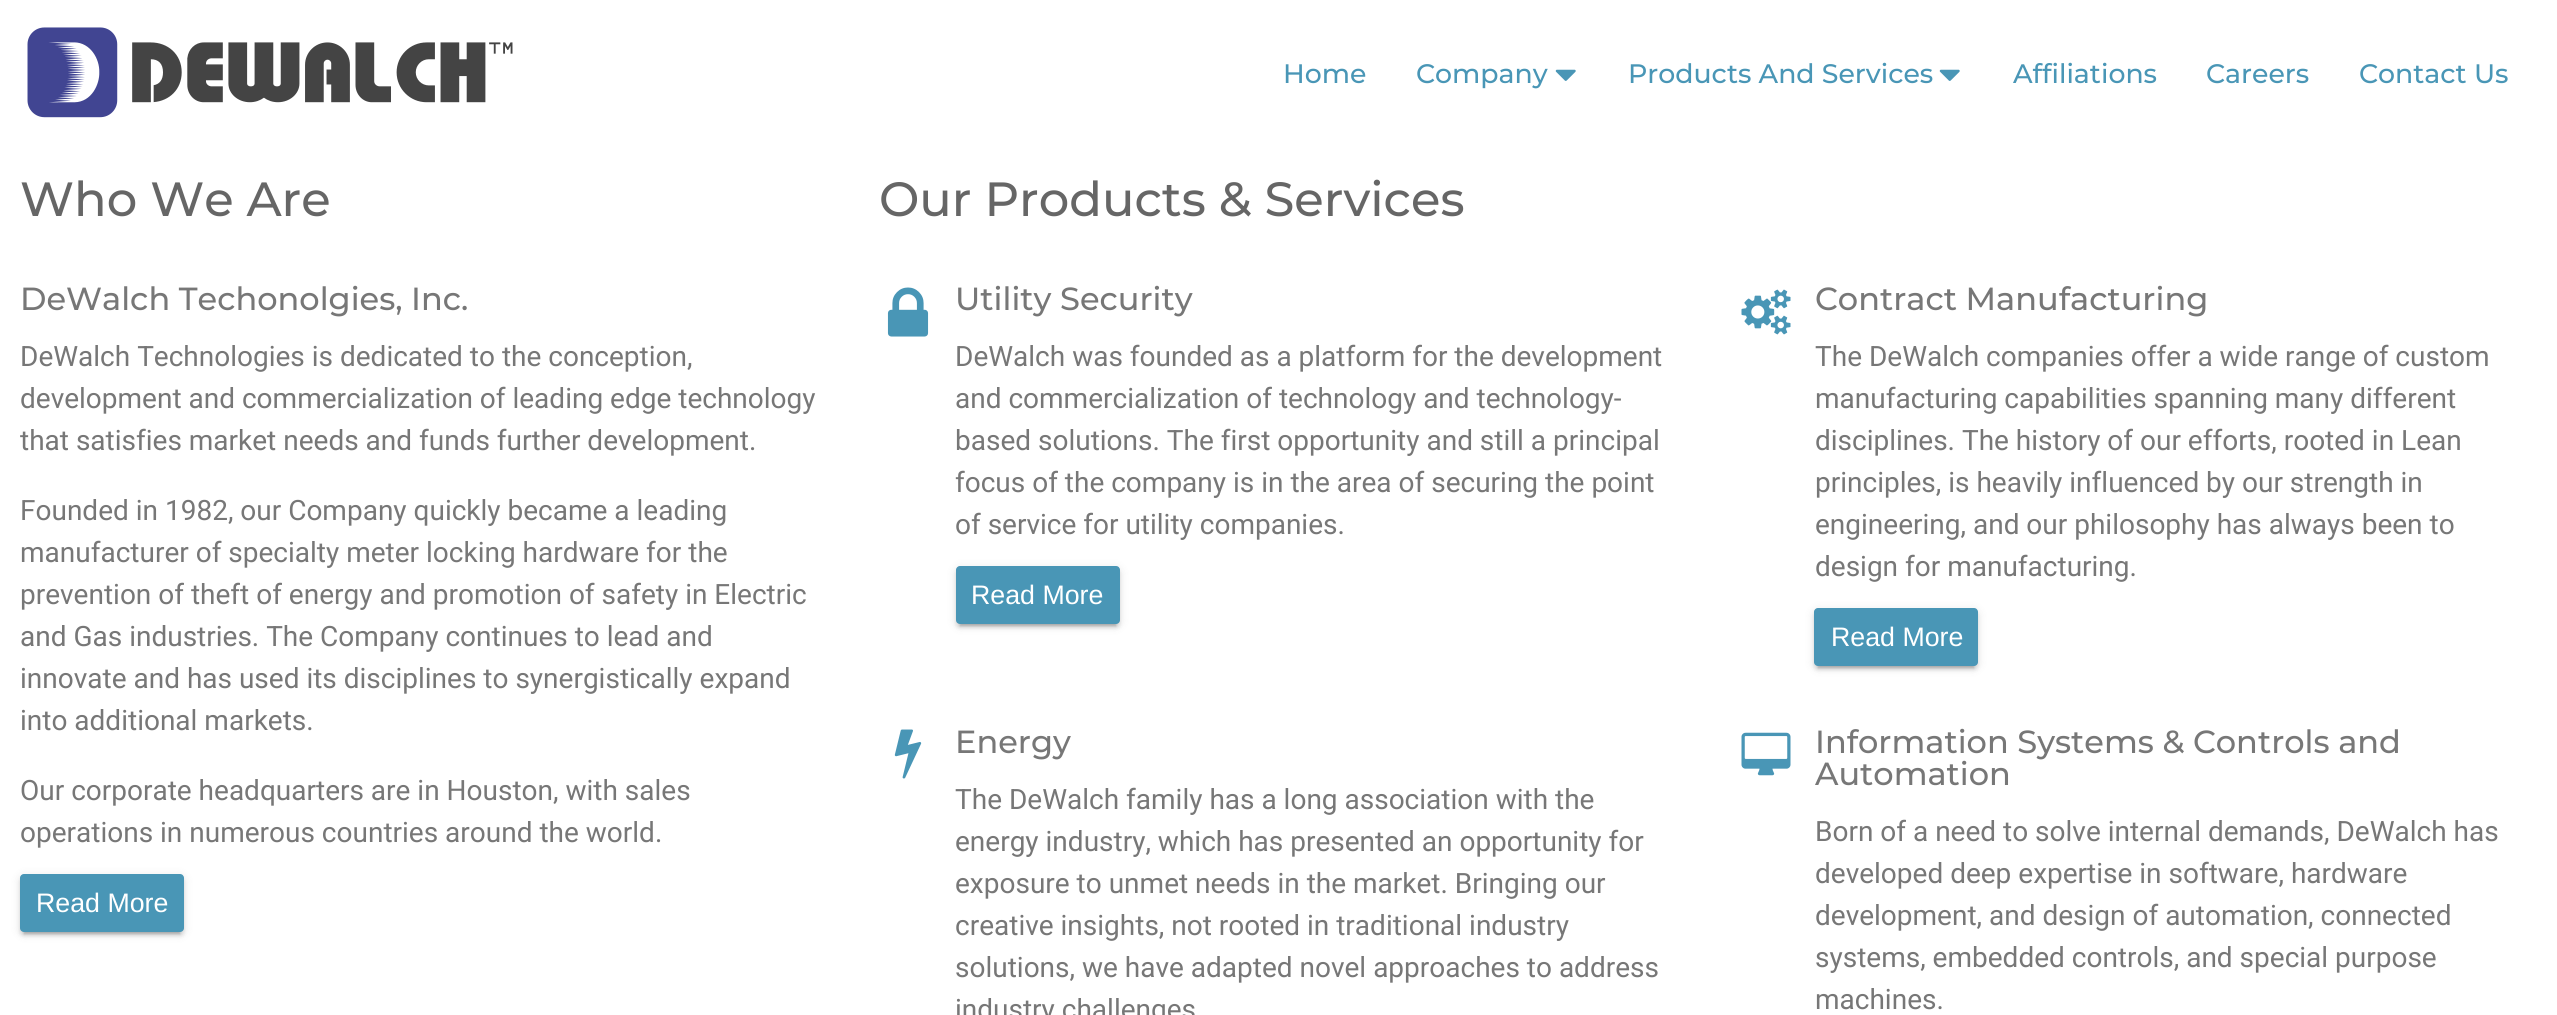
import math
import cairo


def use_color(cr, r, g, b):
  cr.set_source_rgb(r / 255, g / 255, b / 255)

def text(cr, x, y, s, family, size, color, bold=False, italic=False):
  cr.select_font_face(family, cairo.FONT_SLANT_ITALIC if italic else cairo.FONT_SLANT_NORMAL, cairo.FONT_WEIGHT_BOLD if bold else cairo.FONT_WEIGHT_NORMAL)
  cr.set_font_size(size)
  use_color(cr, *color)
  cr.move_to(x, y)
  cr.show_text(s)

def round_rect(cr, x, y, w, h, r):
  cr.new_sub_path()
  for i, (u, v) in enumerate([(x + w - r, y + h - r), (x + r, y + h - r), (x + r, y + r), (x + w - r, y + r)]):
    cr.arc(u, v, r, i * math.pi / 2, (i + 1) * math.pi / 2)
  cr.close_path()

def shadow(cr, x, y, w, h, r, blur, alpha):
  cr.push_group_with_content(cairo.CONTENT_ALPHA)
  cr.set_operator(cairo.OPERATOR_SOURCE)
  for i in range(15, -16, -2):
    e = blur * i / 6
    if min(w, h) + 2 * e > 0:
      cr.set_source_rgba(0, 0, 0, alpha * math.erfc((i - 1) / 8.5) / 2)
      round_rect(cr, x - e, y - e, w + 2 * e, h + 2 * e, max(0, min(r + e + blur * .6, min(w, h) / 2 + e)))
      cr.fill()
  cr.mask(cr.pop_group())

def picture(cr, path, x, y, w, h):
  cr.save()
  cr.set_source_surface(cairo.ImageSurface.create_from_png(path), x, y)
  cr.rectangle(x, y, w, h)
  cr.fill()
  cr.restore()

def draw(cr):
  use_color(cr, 255, 255, 255)
  cr.paint()
  picture(cr, "img_01.png", 27, 27, 486, 91)
  picture(cr, "img_02.png", 1555, 69, 21, 12)
  picture(cr, "img_02.png", 1939, 69, 21, 12)
  use_color(cr, 0, 0, 0)
  shadow(cr, 24, 884, 156, 50, 0, 1, 0.18)
  shadow(cr, 20, 876, 164, 58, 4, 5, 0.1)
  shadow(cr, 20, 878, 164, 58, 4, 2, 0.12)
  use_color(cr, 73, 150, 182)
  round_rect(cr, 20, 874, 164, 58, 4)
  cr.fill()
  picture(cr, "img_03.png", 887, 287, 42, 50)
  use_color(cr, 0, 0, 0)
  shadow(cr, 960, 576, 156, 50, 0, 1, 0.18)
  shadow(cr, 956, 568, 164, 58, 4, 5, 0.1)
  shadow(cr, 956, 570, 164, 58, 4, 2, 0.12)
  use_color(cr, 73, 150, 182)
  round_rect(cr, 956, 566, 164, 58, 4)
  cr.fill()
  picture(cr, "img_04.png", 1741, 289, 50, 46)
  use_color(cr, 0, 0, 0)
  shadow(cr, 1818, 618, 156, 50, 0, 1, 0.18)
  shadow(cr, 1814, 610, 164, 58, 4, 5, 0.1)
  shadow(cr, 1814, 612, 164, 58, 4, 2, 0.12)
  use_color(cr, 73, 150, 182)
  round_rect(cr, 1814, 608, 164, 58, 4)
  cr.fill()
  picture(cr, "img_05.png", 894, 729, 28, 50)
  picture(cr, "img_06.png", 1741, 732, 50, 44)
  text(cr, 1283, 83, "Home", "Montserrat Medium", 26.75, (73, 150, 182))
  text(cr, 1416, 83, "Company", "Montserrat Medium", 26.75, (73, 150, 182))
  text(cr, 1628, 83, "Products And Services", "Montserrat Medium", 26.75, (73, 150, 182))
  text(cr, 2013, 83, "Affiliations", "Montserrat Medium", 26.75, (73, 150, 182))
  text(cr, 2206, 83, "Careers", "Montserrat Medium", 26.75, (73, 150, 182))
  text(cr, 2359, 83, "Contact Us", "Montserrat Medium", 26.75, (73, 150, 182))
  text(cr, 20, 216, "Who We Are", "Montserrat Medium", 48, (102, 102, 102))
  text(cr, 879, 216, "Our Products & Services", "Montserrat Medium", 48, (102, 102, 102))
  text(cr, 20, 310, "DeWalch Techonolgies, Inc.", "Montserrat Medium", 32, (119, 119, 119))
  text(cr, 20, 366, "DeWalch Technologies is dedicated to the conception,", "Roboto", 28, (119, 119, 119))
  text(cr, 20, 408, "development and commercialization of leading edge technology", "Roboto", 28, (119, 119, 119))
  text(cr, 20, 450, "that satisfies market needs and funds further development.", "Roboto", 28, (119, 119, 119))
  text(cr, 20, 520, "Founded in 1982, our Company quickly became a leading", "Roboto", 28, (119, 119, 119))
  text(cr, 20, 562, "manufacturer of specialty meter locking hardware for the", "Roboto", 28, (119, 119, 119))
  text(cr, 20, 604, "prevention of theft of energy and promotion of safety in Electric", "Roboto", 28, (119, 119, 119))
  text(cr, 20, 646, "and Gas industries. The Company continues to lead and", "Roboto", 28, (119, 119, 119))
  text(cr, 20, 688, "innovate and has used its disciplines to synergistically expand", "Roboto", 28, (119, 119, 119))
  text(cr, 20, 730, "into additional markets.", "Roboto", 28, (119, 119, 119))
  text(cr, 20, 800, "Our corporate headquarters are in Houston, with sales", "Roboto", 28, (119, 119, 119))
  text(cr, 20, 842, "operations in numerous countries around the world.", "Roboto", 28, (119, 119, 119))
  text(cr, 36, 912, "Read More", "Liberation Sans", 26.75, (255, 255, 255))
  text(cr, 955, 310, "Utility Security", "Montserrat Medium", 32, (119, 119, 119))
  text(cr, 955, 366, "DeWalch was founded as a platform for the development", "Roboto", 28, (119, 119, 119))
  text(cr, 955, 408, "and commercialization of technology and technology-", "Roboto", 28, (119, 119, 119))
  text(cr, 955, 450, "based solutions. The first opportunity and still a principal", "Roboto", 28, (119, 119, 119))
  text(cr, 955, 492, "focus of the company is in the area of securing the point", "Roboto", 28, (119, 119, 119))
  text(cr, 955, 534, "of service for utility companies.", "Roboto", 28, (119, 119, 119))
  text(cr, 971, 604, "Read More", "Liberation Sans", 26.75, (255, 255, 255))
  text(cr, 1815, 310, "Contract Manufacturing", "Montserrat Medium", 32, (119, 119, 119))
  text(cr, 1815, 366, "The DeWalch companies offer a wide range of custom", "Roboto", 28, (119, 119, 119))
  text(cr, 1815, 408, "manufacturing capabilities spanning many different", "Roboto", 28, (119, 119, 119))
  text(cr, 1815, 450, "disciplines. The history of our efforts, rooted in Lean", "Roboto", 28, (119, 119, 119))
  text(cr, 1815, 492, "principles, is heavily influenced by our strength in", "Roboto", 28, (119, 119, 119))
  text(cr, 1815, 534, "engineering, and our philosophy has always been to", "Roboto", 28, (119, 119, 119))
  text(cr, 1815, 576, "design for manufacturing.", "Roboto", 28, (119, 119, 119))
  text(cr, 1831, 646, "Read More", "Liberation Sans", 26.75, (255, 255, 255))
  text(cr, 955, 753, "Energy", "Montserrat Medium", 32, (119, 119, 119))
  text(cr, 955, 809, "The DeWalch family has a long association with the", "Roboto", 28, (119, 119, 119))
  text(cr, 955, 851, "energy industry, which has presented an opportunity for", "Roboto", 28, (119, 119, 119))
  text(cr, 955, 893, "exposure to unmet needs in the market. Bringing our", "Roboto", 28, (119, 119, 119))
  text(cr, 955, 935, "creative insights, not rooted in traditional industry", "Roboto", 28, (119, 119, 119))
  text(cr, 955, 977, "solutions, we have adapted novel approaches to address", "Roboto", 28, (119, 119, 119))
  text(cr, 955, 1019, "industry challenges", "Roboto", 28, (119, 119, 119))
  text(cr, 1815, 753, "Information Systems & Controls and", "Montserrat Medium", 32, (119, 119, 119))
  text(cr, 1815, 785, "Automation", "Montserrat Medium", 32, (119, 119, 119))
  text(cr, 1815, 841, "Born of a need to solve internal demands, DeWalch has", "Roboto", 28, (119, 119, 119))
  text(cr, 1815, 883, "developed deep expertise in software, hardware", "Roboto", 28, (119, 119, 119))
  text(cr, 1815, 925, "development, and design of automation, connected", "Roboto", 28, (119, 119, 119))
  text(cr, 1815, 967, "systems, embedded controls, and special purpose", "Roboto", 28, (119, 119, 119))
  text(cr, 1815, 1009, "machines.", "Roboto", 28, (119, 119, 119))


surface = cairo.ImageSurface(cairo.FORMAT_RGB24, 2557, 1015)
cr = cairo.Context(surface)
options = cairo.FontOptions()
options.set_hint_metrics(cairo.HINT_METRICS_OFF)
options.set_hint_style(cairo.HINT_STYLE_NONE)
cr.set_font_options(options)
cr.set_miter_limit(4)
draw(cr)
surface.write_to_png("out.png")
